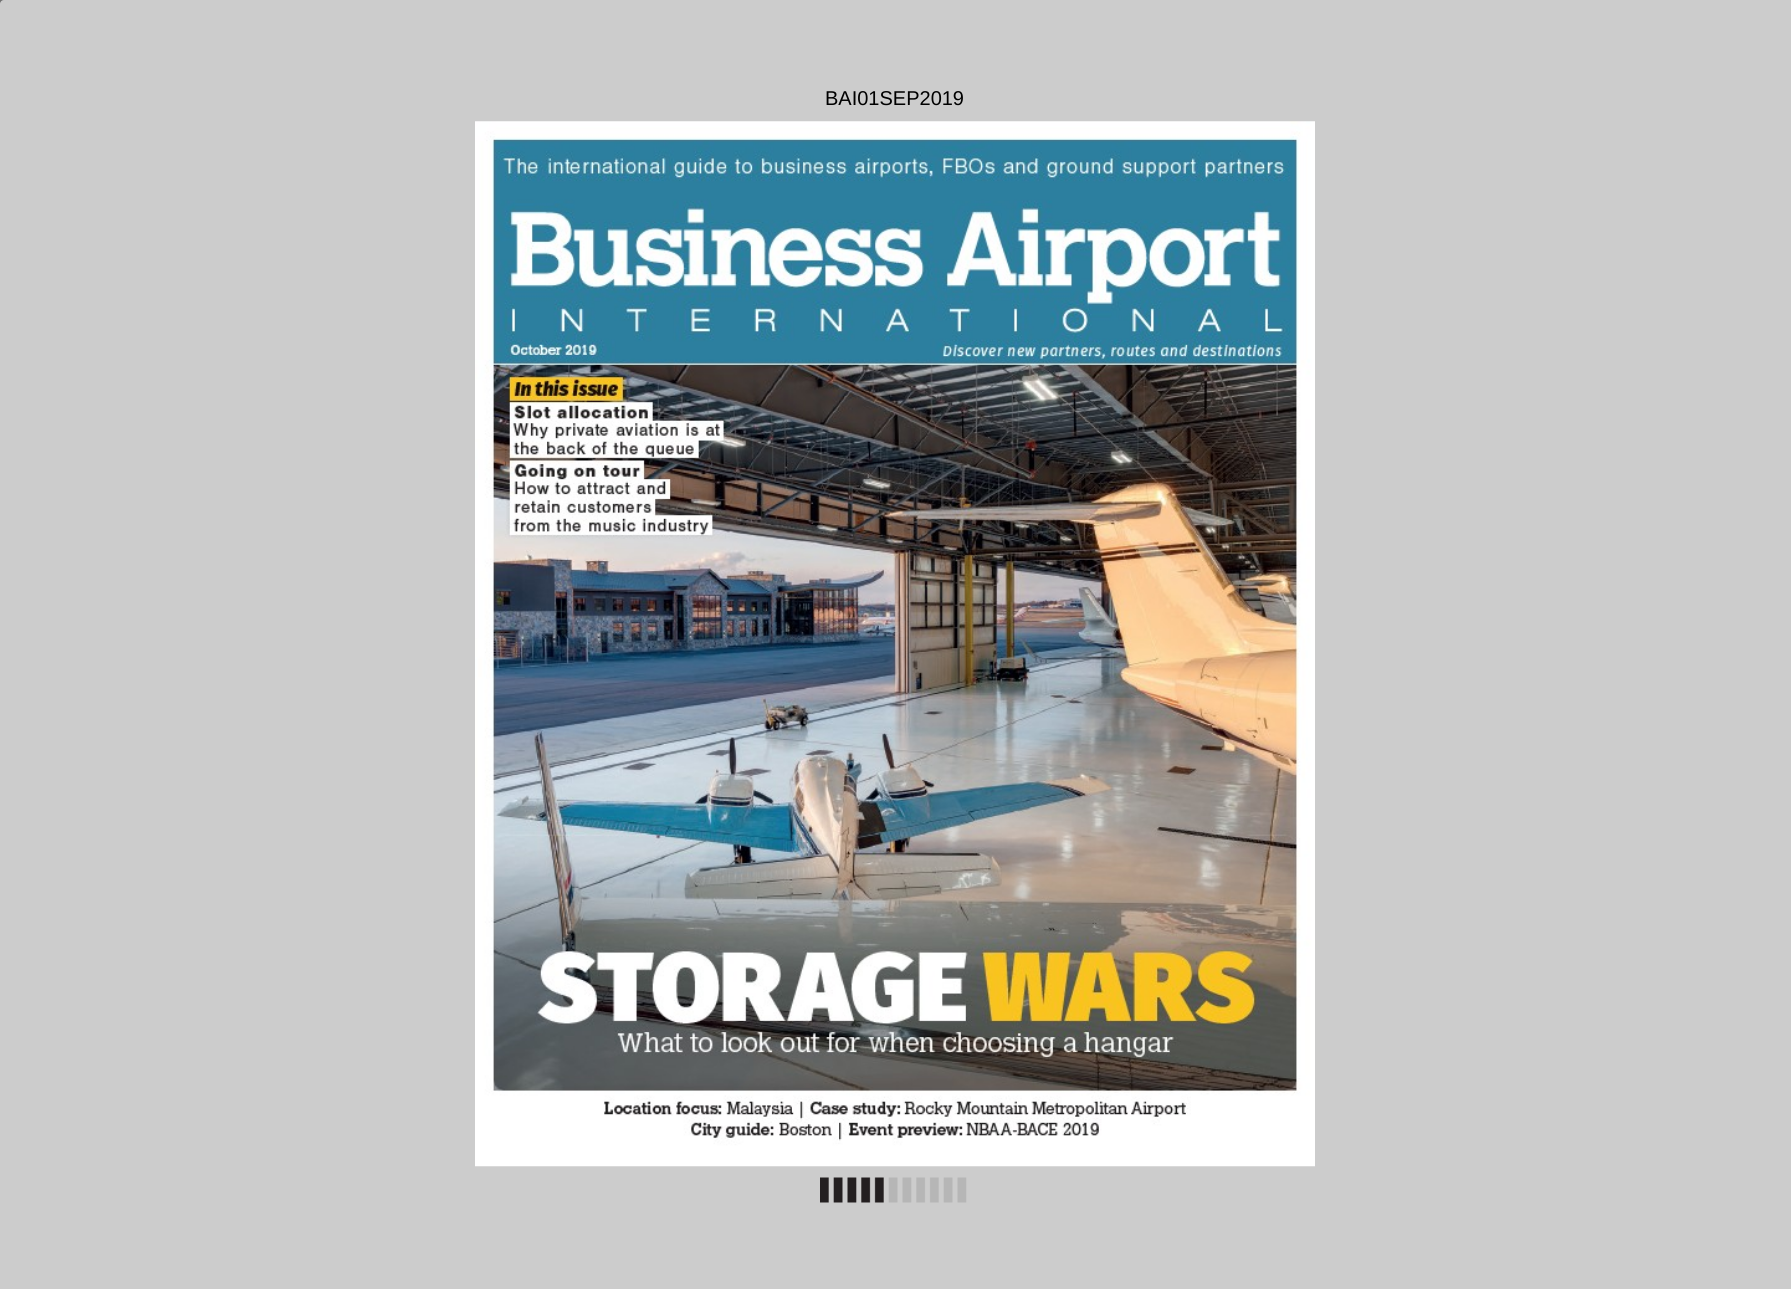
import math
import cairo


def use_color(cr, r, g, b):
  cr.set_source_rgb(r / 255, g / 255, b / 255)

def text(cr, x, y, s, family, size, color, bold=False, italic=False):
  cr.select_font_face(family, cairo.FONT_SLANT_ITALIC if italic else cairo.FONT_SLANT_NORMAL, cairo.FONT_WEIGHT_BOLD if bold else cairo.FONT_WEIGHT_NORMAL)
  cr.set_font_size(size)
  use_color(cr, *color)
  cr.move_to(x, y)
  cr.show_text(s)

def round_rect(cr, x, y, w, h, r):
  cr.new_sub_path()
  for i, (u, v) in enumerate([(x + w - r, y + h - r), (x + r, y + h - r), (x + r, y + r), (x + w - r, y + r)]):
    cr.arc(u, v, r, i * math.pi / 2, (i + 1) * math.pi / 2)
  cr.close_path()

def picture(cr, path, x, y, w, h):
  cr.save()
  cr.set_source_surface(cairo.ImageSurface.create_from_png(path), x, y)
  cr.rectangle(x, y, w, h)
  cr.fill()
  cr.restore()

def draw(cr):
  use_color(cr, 255, 255, 255)
  cr.paint()
  picture(cr, "img_01.png", 0, 0, 4, 4)
  use_color(cr, 204, 204, 204)
  round_rect(cr, 0, 0, 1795, 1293, 4)
  cr.fill()
  picture(cr, "img_02.png", 475, 121, 840, 1046)
  picture(cr, "img_03.png", 820, 1177, 147, 26)
  text(cr, 825, 105, "BAI01SEP2019", "Liberation Sans", 20, (0, 0, 0))


surface = cairo.ImageSurface(cairo.FORMAT_RGB24, 1791, 1289)
cr = cairo.Context(surface)
options = cairo.FontOptions()
options.set_hint_metrics(cairo.HINT_METRICS_OFF)
options.set_hint_style(cairo.HINT_STYLE_NONE)
cr.set_font_options(options)
cr.set_miter_limit(4)
draw(cr)
surface.write_to_png("out.png")
